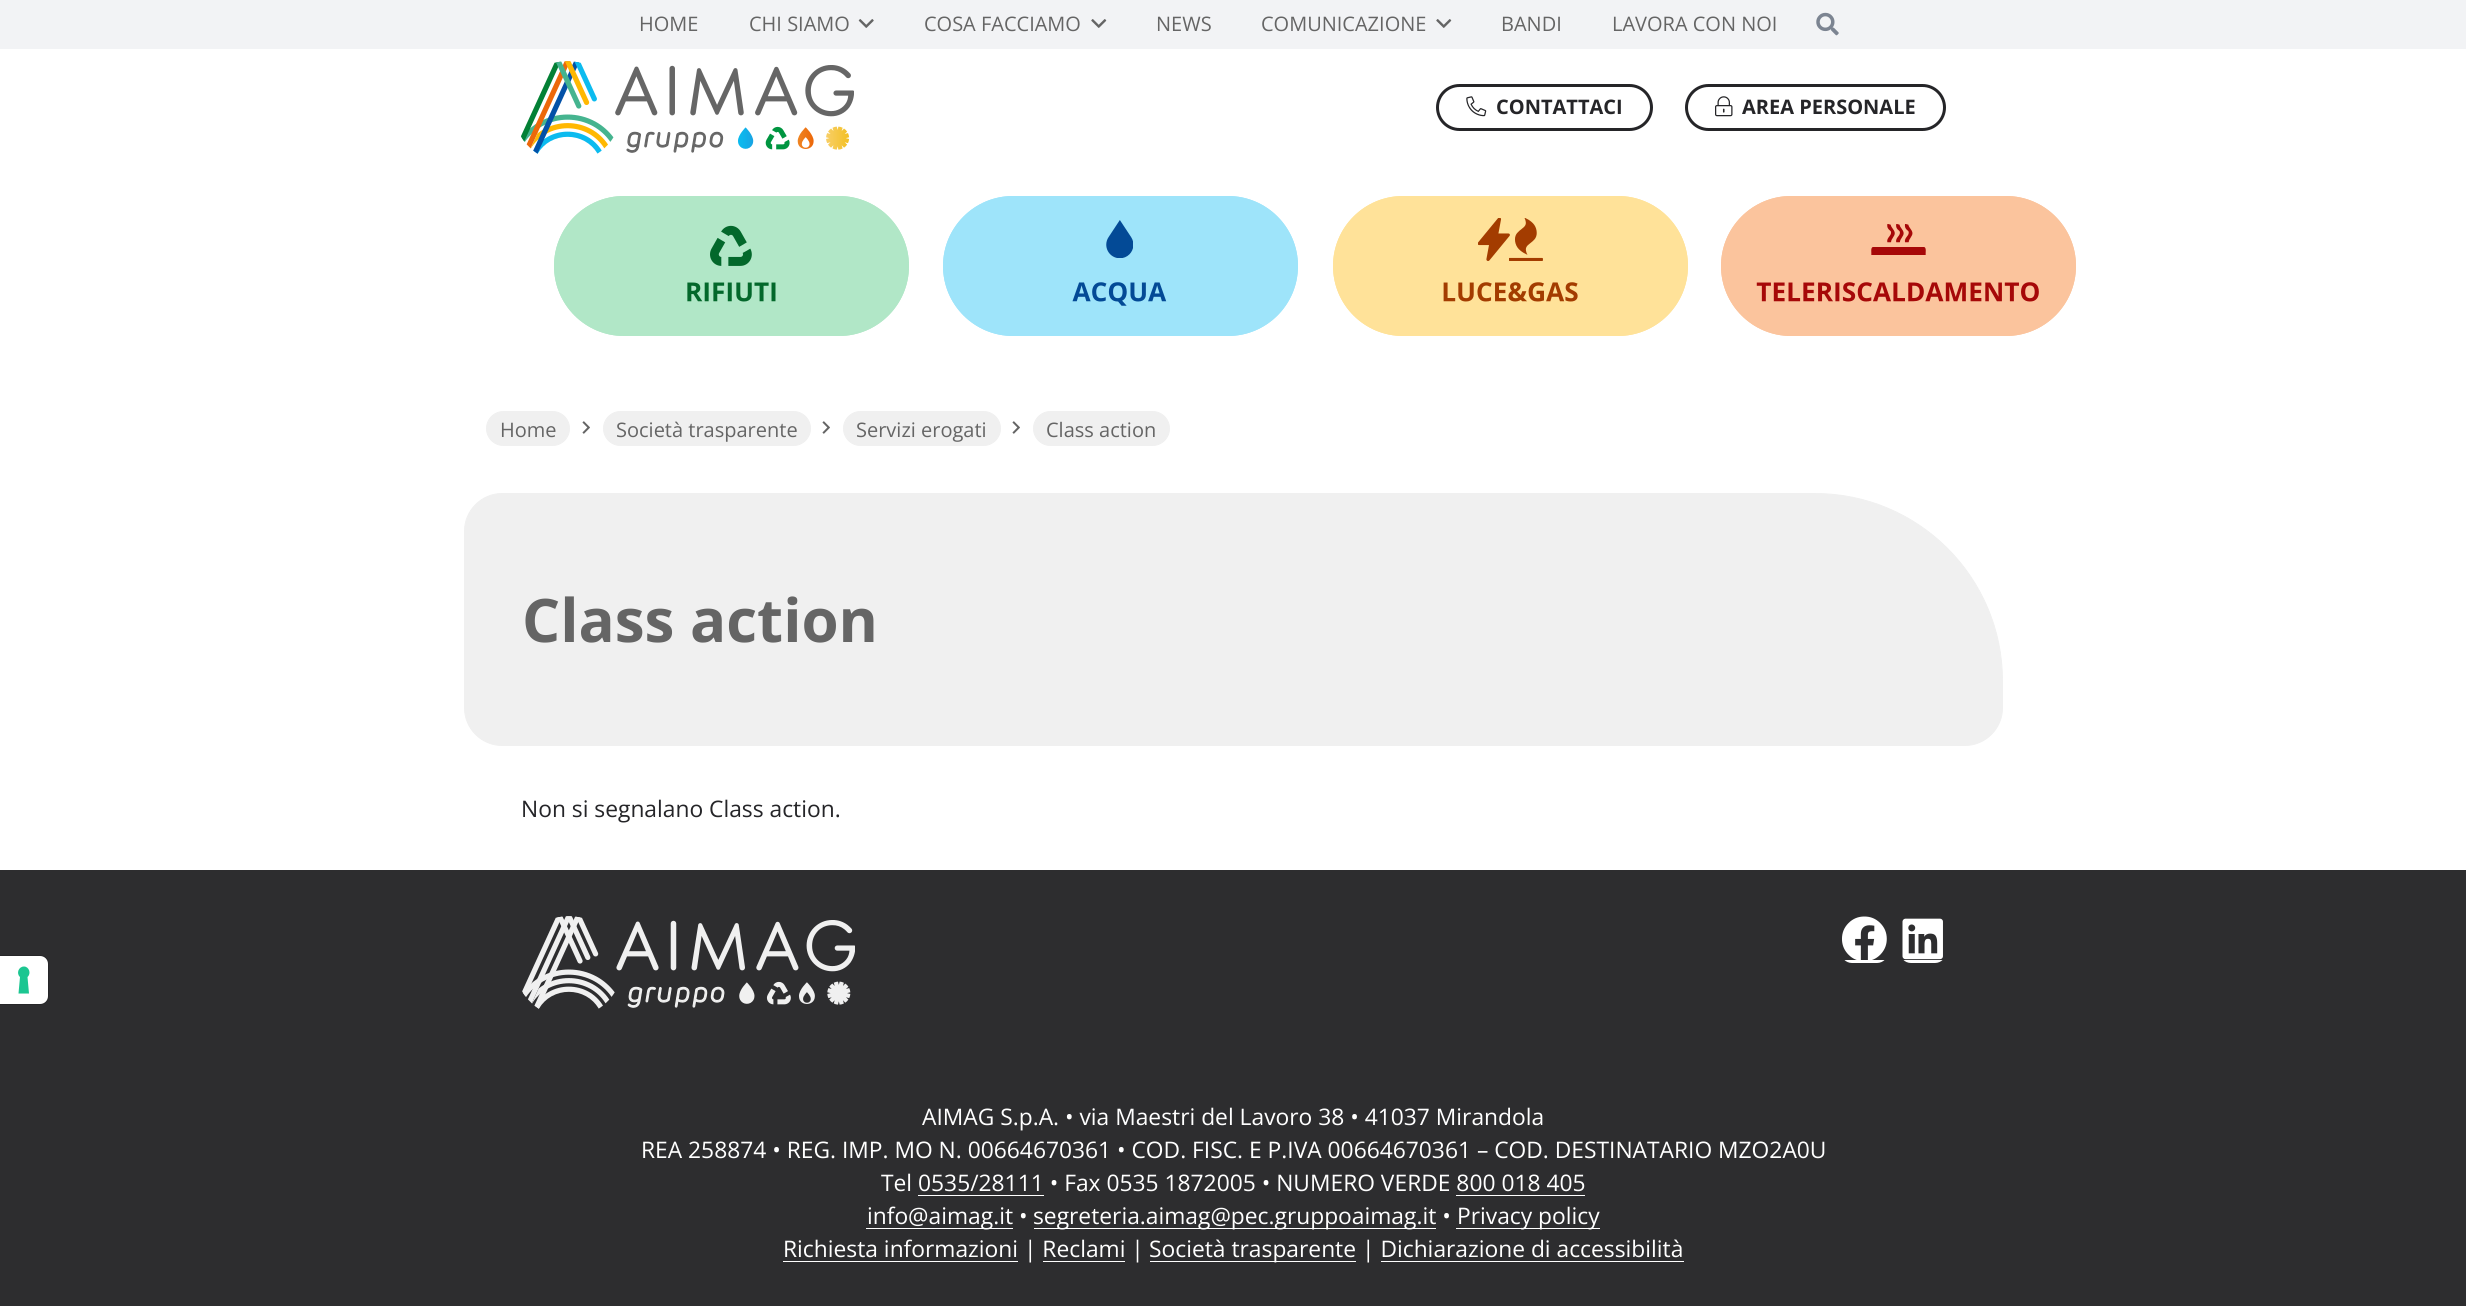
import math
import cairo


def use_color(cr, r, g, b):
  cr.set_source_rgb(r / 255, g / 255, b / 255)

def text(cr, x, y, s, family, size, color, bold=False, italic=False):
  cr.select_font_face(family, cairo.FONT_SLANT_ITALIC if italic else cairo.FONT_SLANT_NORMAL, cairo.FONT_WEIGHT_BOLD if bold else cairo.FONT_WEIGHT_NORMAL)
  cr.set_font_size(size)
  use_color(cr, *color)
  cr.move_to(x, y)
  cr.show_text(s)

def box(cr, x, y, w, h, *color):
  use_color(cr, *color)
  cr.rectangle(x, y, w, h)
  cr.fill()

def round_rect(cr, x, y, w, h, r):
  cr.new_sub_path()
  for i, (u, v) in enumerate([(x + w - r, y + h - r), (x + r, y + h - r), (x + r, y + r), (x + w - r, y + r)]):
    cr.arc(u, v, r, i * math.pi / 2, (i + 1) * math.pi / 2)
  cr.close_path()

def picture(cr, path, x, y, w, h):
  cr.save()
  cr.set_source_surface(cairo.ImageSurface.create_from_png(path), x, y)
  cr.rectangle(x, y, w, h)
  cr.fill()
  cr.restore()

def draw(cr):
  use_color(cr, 255, 255, 255)
  cr.paint()
  box(cr, 0, 0, 2466, 49, 242, 243, 245)
  picture(cr, "img_01.png", 858, 19, 16, 9)
  picture(cr, "img_02.png", 1091, 19, 16, 9)
  picture(cr, "img_02.png", 1436, 19, 16, 9)
  picture(cr, "img_03.png", 1816, 12, 23, 24)
  picture(cr, "img_04.png", 521, 61, 333, 93)
  picture(cr, "img_05.png", 1466, 96, 21, 21)
  round_rect(cr, 1437.5, 85.5, 214, 44, 22)
  use_color(cr, 37, 37, 40)
  cr.set_line_width(3)
  cr.stroke()
  picture(cr, "img_06.png", 1715, 96, 18, 21)
  round_rect(cr, 1686.5, 85.5, 258, 44, 22)
  cr.stroke()
  picture(cr, "img_07.png", 554, 196, 355, 140)
  picture(cr, "img_08.png", 554, 196, 355, 140)
  picture(cr, "img_09.png", 943, 196, 355, 140)
  picture(cr, "img_10.png", 943, 196, 355, 140)
  picture(cr, "img_11.png", 1333, 196, 355, 140)
  picture(cr, "img_12.png", 1333, 196, 355, 140)
  picture(cr, "img_13.png", 1721, 196, 355, 140)
  picture(cr, "img_14.png", 1721, 196, 355, 140)
  use_color(cr, 240, 240, 240)
  round_rect(cr, 486.5, 411.5, 83, 34, 17)
  cr.fill_preserve()
  cr.set_line_width(1)
  cr.stroke()
  picture(cr, "img_15.png", 582, 421, 8, 13)
  round_rect(cr, 603.5, 411.5, 207, 34, 17)
  cr.fill_preserve()
  cr.stroke()
  picture(cr, "img_15.png", 822, 421, 8, 13)
  round_rect(cr, 843.5, 411.5, 157, 34, 17)
  cr.fill_preserve()
  cr.stroke()
  picture(cr, "img_15.png", 1012, 421, 8, 13)
  round_rect(cr, 1033.5, 411.5, 136, 34, 17)
  cr.fill_preserve()
  cr.stroke()
  cr.new_path()
  cr.move_to(502, 493.5)
  cr.line_to(1815, 493.5)
  cr.curve_to(1918.5, 493.5, 2002.5, 577.5, 2002.5, 681)
  cr.line_to(2002.5, 708)
  cr.curve_to(2002.5, 728.5, 1985.5, 745.5, 1965, 745.5)
  cr.line_to(502, 745.5)
  cr.curve_to(481.5, 745.5, 464.5, 728.5, 464.5, 708)
  cr.line_to(464.5, 531)
  cr.curve_to(464.5, 510.5, 481.5, 493.5, 502, 493.5)
  cr.close_path()
  cr.fill_preserve()
  cr.stroke()
  box(cr, 0, 870, 2466, 436, 45, 45, 47)
  cr.new_path()
  cr.move_to(-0.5, 955.5)
  cr.line_to(40, 955.5)
  cr.curve_to(44.5, 955.5, 48.5, 959.5, 48.5, 964)
  cr.line_to(48.5, 996)
  cr.curve_to(48.5, 1000.5, 44.5, 1004.5, 40, 1004.5)
  cr.line_to(-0.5, 1004.5)
  cr.close_path()
  use_color(cr, 38, 38, 40)
  cr.stroke()
  use_color(cr, 255, 255, 255)
  cr.new_path()
  cr.move_to(0, 956)
  cr.line_to(40, 956)
  cr.curve_to(44.5, 956, 48, 959.5, 48, 964)
  cr.line_to(48, 996)
  cr.curve_to(48, 1000.5, 44.5, 1004, 40, 1004)
  cr.line_to(0, 1004)
  cr.close_path()
  cr.fill()
  use_color(cr, 28, 198, 145)
  cr.set_fill_rule(cairo.FILL_RULE_EVEN_ODD)
  cr.new_path()
  cr.move_to(24, 966.5)
  cr.curve_to(29, 966.5, 31.5, 973.5, 27.5, 977)
  cr.line_to(29, 993.5)
  cr.line_to(18.5, 993.5)
  cr.line_to(20, 977)
  cr.curve_to(16, 973.5, 18.5, 966.5, 24, 966.5)
  cr.close_path()
  cr.fill()
  picture(cr, "img_16.png", 522, 916, 333, 93)
  picture(cr, "img_17.png", 1842, 916, 45, 44)
  cr.save()
  cr.set_fill_rule(cairo.FILL_RULE_WINDING)
  round_rect(cr, 1841, 916, 47, 47, 11)
  cr.clip()
  box(cr, 1841, 960, 47, 3, 255, 255, 255)
  cr.restore()
  picture(cr, "img_18.png", 1902, 918, 41, 42)
  cr.save()
  cr.set_fill_rule(cairo.FILL_RULE_WINDING)
  round_rect(cr, 1900, 916, 46, 47, 11)
  cr.clip()
  box(cr, 1903, 960, 40, 3, 255, 255, 255)
  cr.restore()
  box(cr, 918, 1195, 126, 1, 255, 255, 255)
  box(cr, 1456, 1195, 129, 1, 255, 255, 255)
  box(cr, 866, 1228, 147, 1, 255, 255, 255)
  box(cr, 1034, 1228, 402, 1, 255, 255, 255)
  box(cr, 1456, 1228, 144, 1, 255, 255, 255)
  box(cr, 783, 1261, 235, 1, 255, 255, 255)
  box(cr, 1150, 1261, 206, 1, 255, 255, 255)
  box(cr, 1043, 1261, 82, 1, 255, 255, 255)
  box(cr, 1381, 1261, 303, 1, 255, 255, 255)
  text(cr, 639, 31, "HOME", "Open Sans", 20, (101, 101, 101))
  text(cr, 749, 31, "CHI SIAMO", "Open Sans", 20, (101, 101, 101))
  text(cr, 924, 31, "COSA FACCIAMO", "Open Sans", 20, (101, 101, 101))
  text(cr, 1156, 31, "NEWS", "Open Sans", 20, (101, 101, 101))
  text(cr, 1261, 31, "COMUNICAZIONE", "Open Sans", 20, (101, 101, 101))
  text(cr, 1501, 31, "BANDI", "Open Sans", 20, (101, 101, 101))
  text(cr, 1612, 31, "LAVORA CON NOI", "Open Sans", 20, (101, 101, 101))
  text(cr, 1496, 114, "CONTATTACI", "Open Sans", 20, (37, 37, 40), bold=True)
  text(cr, 1742, 114, "AREA PERSONALE", "Open Sans", 20, (37, 37, 40), bold=True)
  text(cr, 500, 437, "Home", "Open Sans", 20, (101, 101, 101))
  text(cr, 616, 437, "Società trasparente", "Open Sans", 20, (101, 101, 101))
  text(cr, 856, 437, "Servizi erogati", "Open Sans", 20, (101, 101, 101))
  text(cr, 1046, 437, "Class action", "Open Sans", 20, (101, 101, 101))
  text(cr, 522, 642, "Class action", "Open Sans", 60, (101, 101, 101), bold=True)
  text(cr, 521, 817, "Non si segnalano Class action.", "Open Sans", 22.8, (37, 37, 40))
  text(cr, 922, 1125, "AIMAG S.p.A. • via Maestri del Lavoro 38 • 41037 Mirandola", "Open Sans", 22.8, (255, 255, 255))
  text(cr, 641, 1158, "REA 258874 • REG. IMP. MO N. 00664670361 • COD. FISC. E P.IVA 00664670361 – COD. DESTINATARIO MZO2A0U", "Open Sans", 22.8, (255, 255, 255))
  text(cr, 881, 1191, "Tel 0535/28111 • Fax 0535 1872005 • NUMERO VERDE 800 018 405", "Open Sans", 22.8, (255, 255, 255))
  text(cr, 867, 1224, "info@aimag.it •", "Open Sans", 22.8, (255, 255, 255))
  text(cr, 1033, 1224, "segreteria.aimag@pec.gruppoaimag.it •", "Open Sans", 22.8, (255, 255, 255))
  text(cr, 1457, 1224, "Privacy policy", "Open Sans", 22.8, (255, 255, 255))
  text(cr, 783, 1257, "Richiesta informazioni | Reclami |", "Open Sans", 22.8, (255, 255, 255))
  text(cr, 1149, 1257, "Società trasparente | Dichiarazione di accessibilità", "Open Sans", 22.8, (255, 255, 255))


surface = cairo.ImageSurface(cairo.FORMAT_RGB24, 2466, 1306)
cr = cairo.Context(surface)
options = cairo.FontOptions()
options.set_hint_metrics(cairo.HINT_METRICS_OFF)
options.set_hint_style(cairo.HINT_STYLE_NONE)
cr.set_font_options(options)
cr.set_miter_limit(4)
draw(cr)
surface.write_to_png("out.png")
